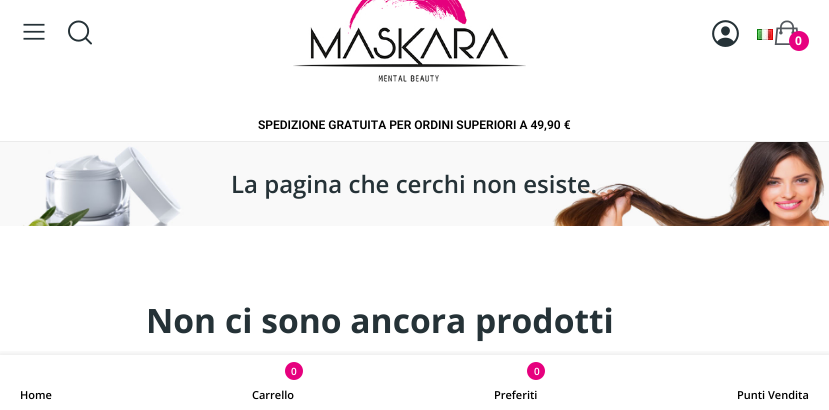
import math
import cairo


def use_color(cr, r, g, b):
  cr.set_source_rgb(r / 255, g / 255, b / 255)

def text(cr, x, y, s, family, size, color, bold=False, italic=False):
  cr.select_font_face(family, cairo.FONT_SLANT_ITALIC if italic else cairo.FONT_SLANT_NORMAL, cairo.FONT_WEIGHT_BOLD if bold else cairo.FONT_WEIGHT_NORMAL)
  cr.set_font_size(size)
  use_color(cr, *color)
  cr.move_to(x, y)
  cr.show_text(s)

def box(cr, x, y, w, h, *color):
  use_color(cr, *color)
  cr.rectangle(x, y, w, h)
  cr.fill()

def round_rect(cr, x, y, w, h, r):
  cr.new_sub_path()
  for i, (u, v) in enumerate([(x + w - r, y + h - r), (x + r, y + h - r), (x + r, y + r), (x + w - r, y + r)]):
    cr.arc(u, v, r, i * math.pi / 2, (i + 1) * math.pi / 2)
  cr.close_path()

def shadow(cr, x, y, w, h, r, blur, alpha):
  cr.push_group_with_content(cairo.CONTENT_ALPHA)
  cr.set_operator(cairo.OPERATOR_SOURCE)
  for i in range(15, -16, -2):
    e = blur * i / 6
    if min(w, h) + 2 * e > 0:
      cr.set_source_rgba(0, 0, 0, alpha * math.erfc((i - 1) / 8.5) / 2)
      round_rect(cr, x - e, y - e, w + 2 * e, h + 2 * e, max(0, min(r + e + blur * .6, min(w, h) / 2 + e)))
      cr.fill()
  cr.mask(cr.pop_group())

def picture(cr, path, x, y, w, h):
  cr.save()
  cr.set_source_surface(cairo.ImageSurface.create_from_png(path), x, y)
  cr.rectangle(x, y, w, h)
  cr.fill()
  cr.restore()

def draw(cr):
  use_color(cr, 255, 255, 255)
  cr.paint()
  box(cr, 0, 141, 829, 1, 235, 235, 235)
  picture(cr, "img_01.png", 23, 23, 22, 17)
  picture(cr, "img_02.png", 68, 20, 24, 25)
  picture(cr, "img_03.png", 293, 0, 233, 82)
  picture(cr, "img_04.png", 712, 20, 27, 27)
  picture(cr, "img_05.png", 757, 29, 16, 11)
  picture(cr, "img_06.png", 774, 20, 24, 25)
  use_color(cr, 231, 1, 127)
  cr.arc(799, 41, 10, 0, 2 * math.pi)
  cr.fill()
  picture(cr, "img_07.png", 0, 142, 829, 84)
  cr.save()
  cr.rectangle(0, 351, 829, 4)
  cr.clip()
  use_color(cr, 0, 0, 0)
  shadow(cr, 0, 355, 829, 55, 0, 4.5, 0.12)
  cr.restore()
  use_color(cr, 230, 0, 126)
  cr.arc(294, 371, 9, 0, 2 * math.pi)
  cr.fill()
  cr.arc(536, 371, 9, 0, 2 * math.pi)
  cr.fill()
  text(cr, 795, 45, "0", "Open Sans", 12, (255, 255, 255), bold=True)
  text(cr, 258, 129, "SPEDIZIONE GRATUITA PER ORDINI SUPERIORI A 49,90 €", "Roboto SemiBold", 12, (0, 0, 0))
  text(cr, 231, 193, "La pagina che cerchi non esiste.", "Open Sans SemiBold", 24, (37, 50, 55))
  text(cr, 146, 333, "Non ci sono ancora prodotti", "Open Sans", 33.6, (37, 50, 55), bold=True)
  text(cr, 20, 399, "Home", "Open Sans SemiBold", 11, (0, 0, 0))
  text(cr, 291, 375, "0", "Open Sans SemiBold", 10, (255, 255, 255))
  text(cr, 252, 399, "Carrello", "Open Sans SemiBold", 11, (0, 0, 0))
  text(cr, 534, 375, "0", "Open Sans SemiBold", 10, (255, 255, 255))
  text(cr, 494, 399, "Preferiti", "Open Sans SemiBold", 11, (0, 0, 0))
  text(cr, 737, 399, "Punti Vendita", "Open Sans SemiBold", 11, (0, 0, 0))


surface = cairo.ImageSurface(cairo.FORMAT_RGB24, 829, 410)
cr = cairo.Context(surface)
options = cairo.FontOptions()
options.set_hint_metrics(cairo.HINT_METRICS_OFF)
options.set_hint_style(cairo.HINT_STYLE_NONE)
cr.set_font_options(options)
cr.set_miter_limit(4)
draw(cr)
surface.write_to_png("out.png")
